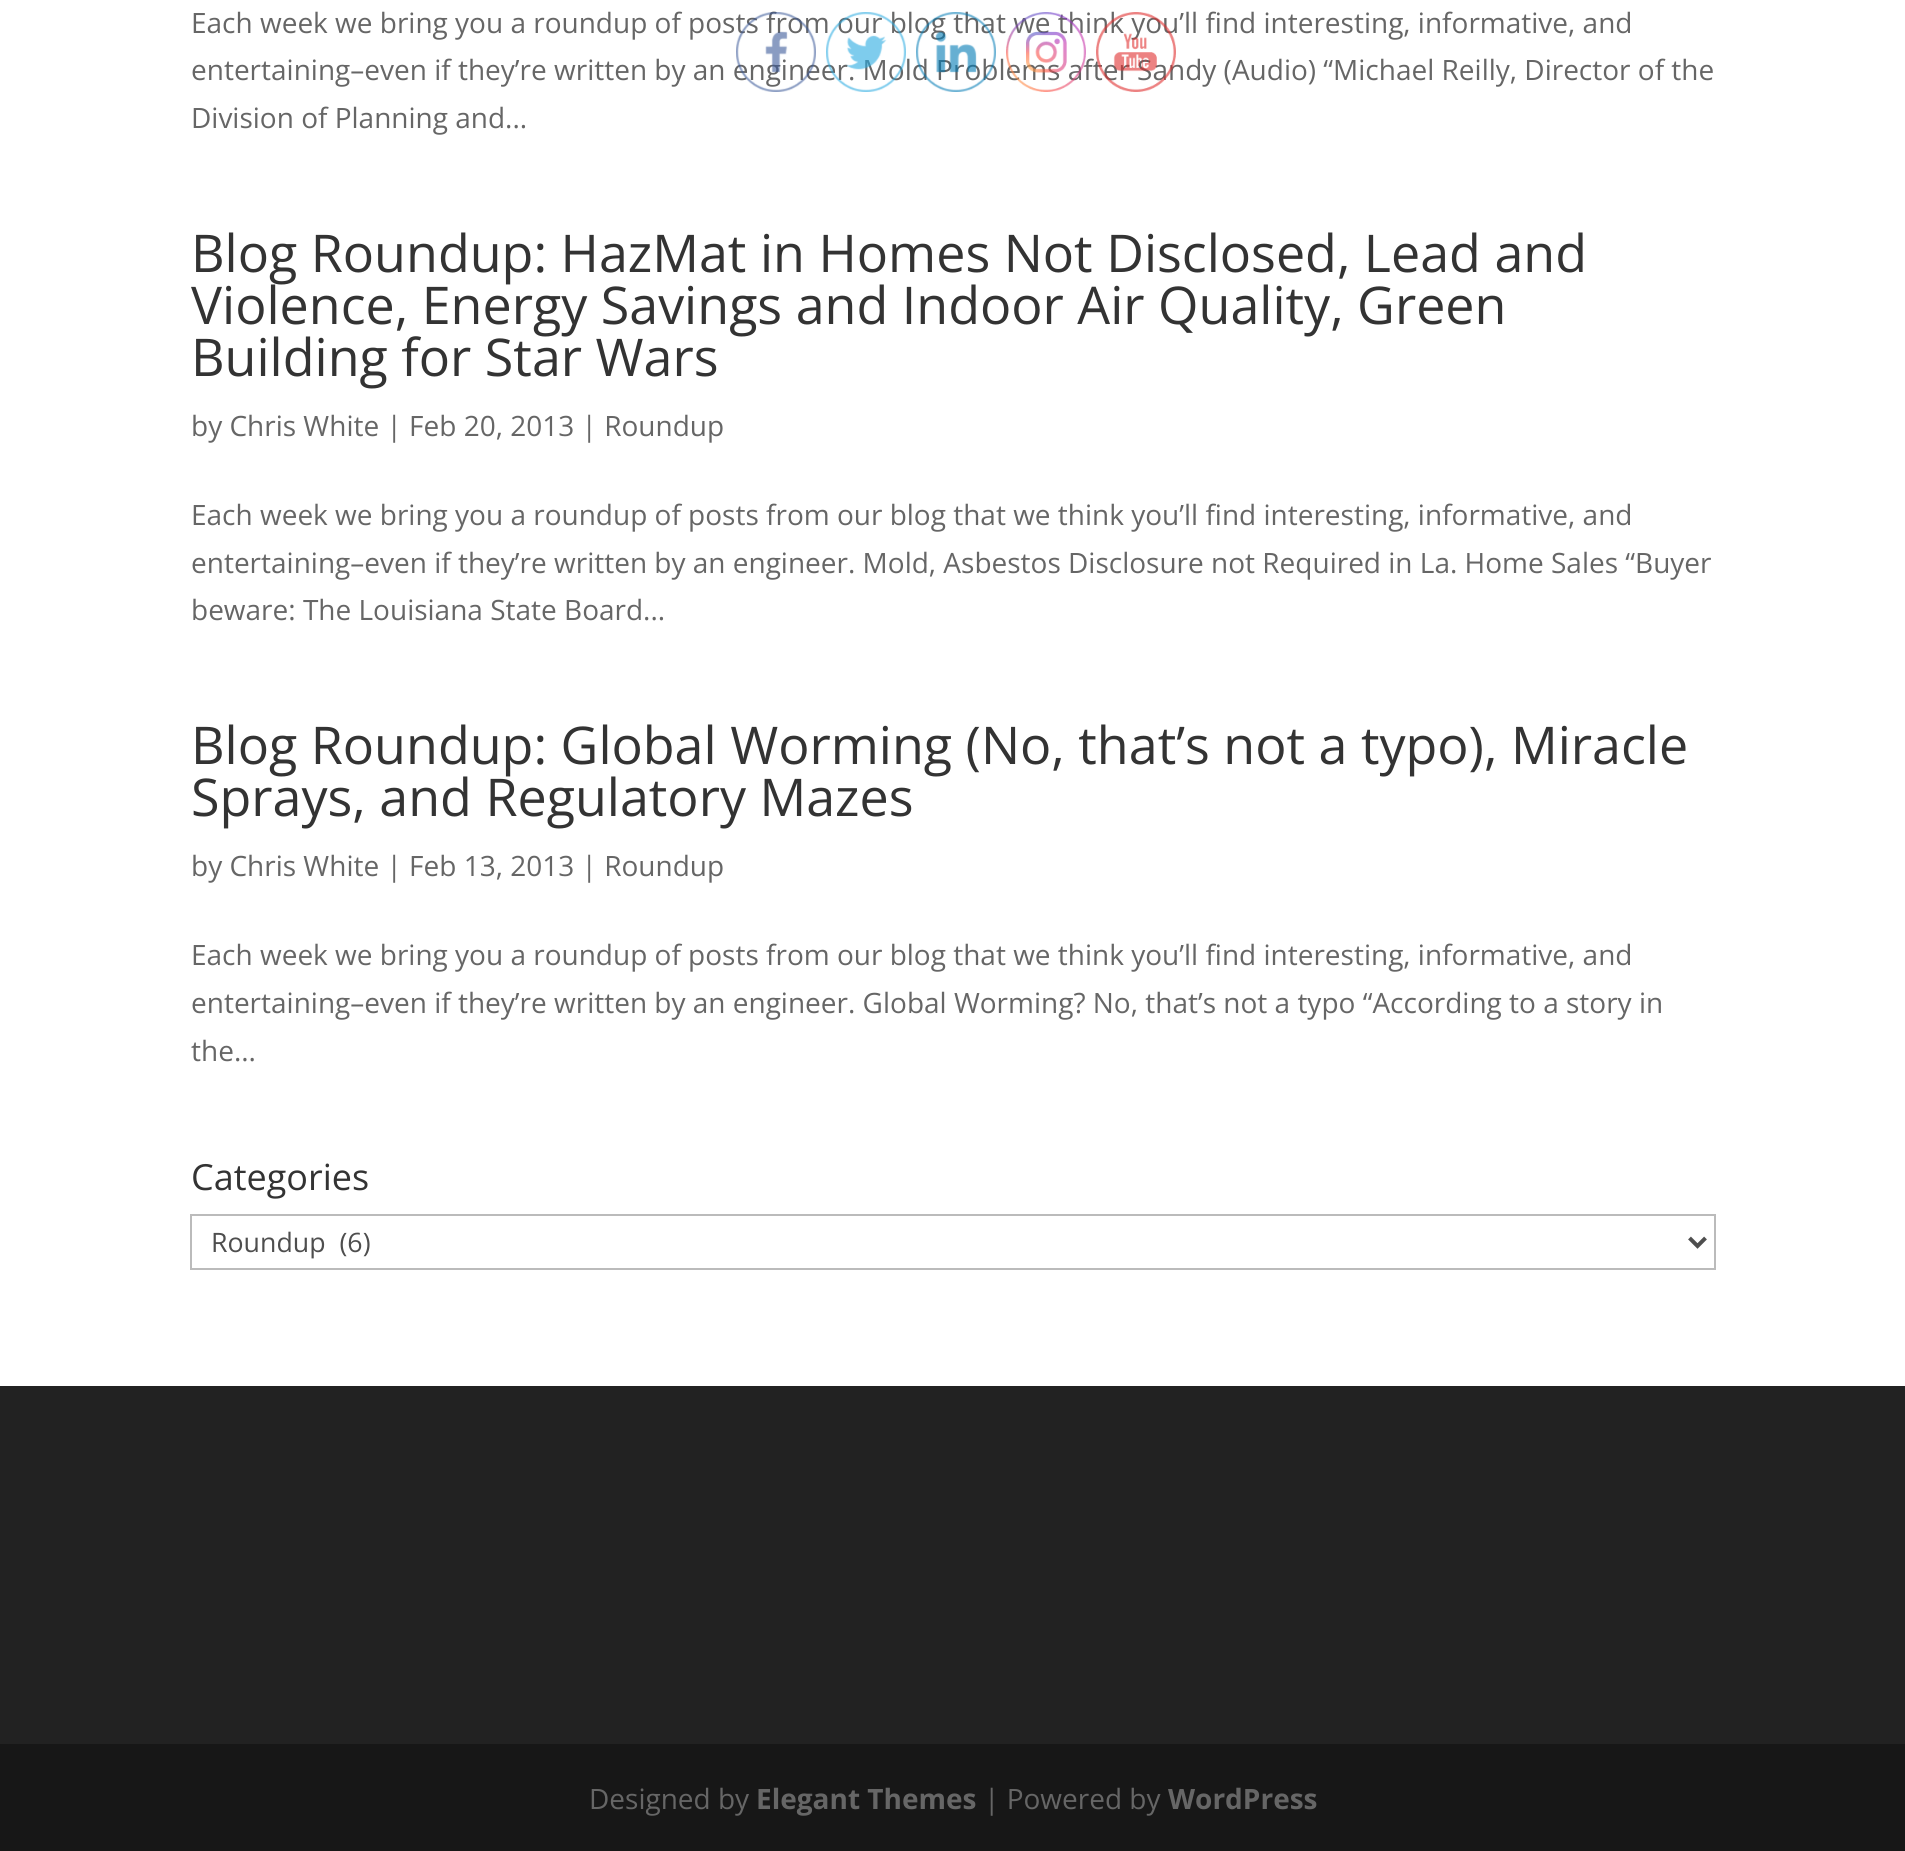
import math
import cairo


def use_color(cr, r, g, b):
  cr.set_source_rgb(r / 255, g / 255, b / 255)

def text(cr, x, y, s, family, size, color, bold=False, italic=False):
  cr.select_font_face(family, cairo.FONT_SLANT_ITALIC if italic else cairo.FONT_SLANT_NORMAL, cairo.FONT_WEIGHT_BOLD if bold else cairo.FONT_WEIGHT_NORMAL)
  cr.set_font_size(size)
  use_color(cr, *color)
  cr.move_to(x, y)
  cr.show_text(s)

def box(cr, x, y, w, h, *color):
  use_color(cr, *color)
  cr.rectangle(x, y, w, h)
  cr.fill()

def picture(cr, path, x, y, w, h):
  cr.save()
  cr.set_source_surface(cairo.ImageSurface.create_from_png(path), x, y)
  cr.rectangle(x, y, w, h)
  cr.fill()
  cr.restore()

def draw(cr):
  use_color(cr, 255, 255, 255)
  cr.paint()
  cr.rectangle(191, 1215, 1524, 54)
  use_color(cr, 187, 187, 187)
  cr.stroke()
  cr.new_path()
  cr.move_to(1689.5, 1238)
  cr.line_to(1697.5, 1246)
  cr.line_to(1705.5, 1238)
  use_color(cr, 78, 78, 78)
  cr.set_line_width(4)
  cr.stroke()
  box(cr, 0, 1386, 1905, 358, 34, 34, 34)
  box(cr, 0, 1744, 1905, 107, 23, 23, 23)
  text(cr, 191, 33, "Each week we bring you a roundup of posts from our blog that we think you’ll find interesting, informative, and", "Open Sans", 28, (102, 102, 102))
  text(cr, 191, 80, "entertaining–even if they’re written by an engineer. Mold Problems after Sandy (Audio) “Michael Reilly, Director of the", "Open Sans", 28, (102, 102, 102))
  text(cr, 191, 128, "Division of Planning and...", "Open Sans", 28, (102, 102, 102))
  text(cr, 191, 272, "Blog Roundup: HazMat in Homes Not Disclosed, Lead and", "Open Sans", 52, (51, 51, 51))
  text(cr, 191, 324, "Violence, Energy Savings and Indoor Air Quality, Green", "Open Sans", 52, (51, 51, 51))
  text(cr, 191, 376, "Building for Star Wars", "Open Sans", 52, (51, 51, 51))
  text(cr, 191, 436, "by Chris White | Feb 20, 2013 | Roundup", "Open Sans", 28, (102, 102, 102))
  text(cr, 191, 525, "Each week we bring you a roundup of posts from our blog that we think you’ll find interesting, informative, and", "Open Sans", 28, (102, 102, 102))
  text(cr, 191, 573, "entertaining–even if they’re written by an engineer. Mold, Asbestos Disclosure not Required in La. Home Sales “Buyer", "Open Sans", 28, (102, 102, 102))
  text(cr, 191, 620, "beware: The Louisiana State Board...", "Open Sans", 28, (102, 102, 102))
  text(cr, 191, 764, "Blog Roundup: Global Worming (No, that’s not a typo), Miracle", "Open Sans", 52, (51, 51, 51))
  text(cr, 191, 816, "Sprays, and Regulatory Mazes", "Open Sans", 52, (51, 51, 51))
  text(cr, 191, 876, "by Chris White | Feb 13, 2013 | Roundup", "Open Sans", 28, (102, 102, 102))
  text(cr, 191, 965, "Each week we bring you a roundup of posts from our blog that we think you’ll find interesting, informative, and", "Open Sans", 28, (102, 102, 102))
  text(cr, 191, 1013, "entertaining–even if they’re written by an engineer. Global Worming? No, that’s not a typo “According to a story in", "Open Sans", 28, (102, 102, 102))
  text(cr, 191, 1061, "the...", "Open Sans", 28, (102, 102, 102))
  text(cr, 191, 1190, "Categories", "Open Sans", 36, (51, 51, 51))
  text(cr, 211, 1252, "Roundup  (6)", "Open Sans", 26.75, (78, 78, 78))
  text(cr, 589, 1809, "Designed by", "Open Sans", 28, (102, 102, 102))
  text(cr, 756, 1809, "Elegant Themes", "Open Sans", 28, (102, 102, 102), bold=True)
  text(cr, 984, 1809, "| Powered by", "Open Sans", 28, (102, 102, 102))
  text(cr, 1168, 1809, "WordPress", "Open Sans", 28, (102, 102, 102), bold=True)
  picture(cr, "img_01.png", 736, 12, 80, 80)
  picture(cr, "img_02.png", 826, 12, 80, 80)
  picture(cr, "img_03.png", 916, 12, 80, 80)
  picture(cr, "img_04.png", 1006, 12, 80, 80)
  picture(cr, "img_05.png", 1096, 12, 80, 80)


surface = cairo.ImageSurface(cairo.FORMAT_RGB24, 1905, 1851)
cr = cairo.Context(surface)
options = cairo.FontOptions()
options.set_hint_metrics(cairo.HINT_METRICS_OFF)
options.set_hint_style(cairo.HINT_STYLE_NONE)
cr.set_font_options(options)
cr.set_miter_limit(4)
draw(cr)
surface.write_to_png("out.png")
